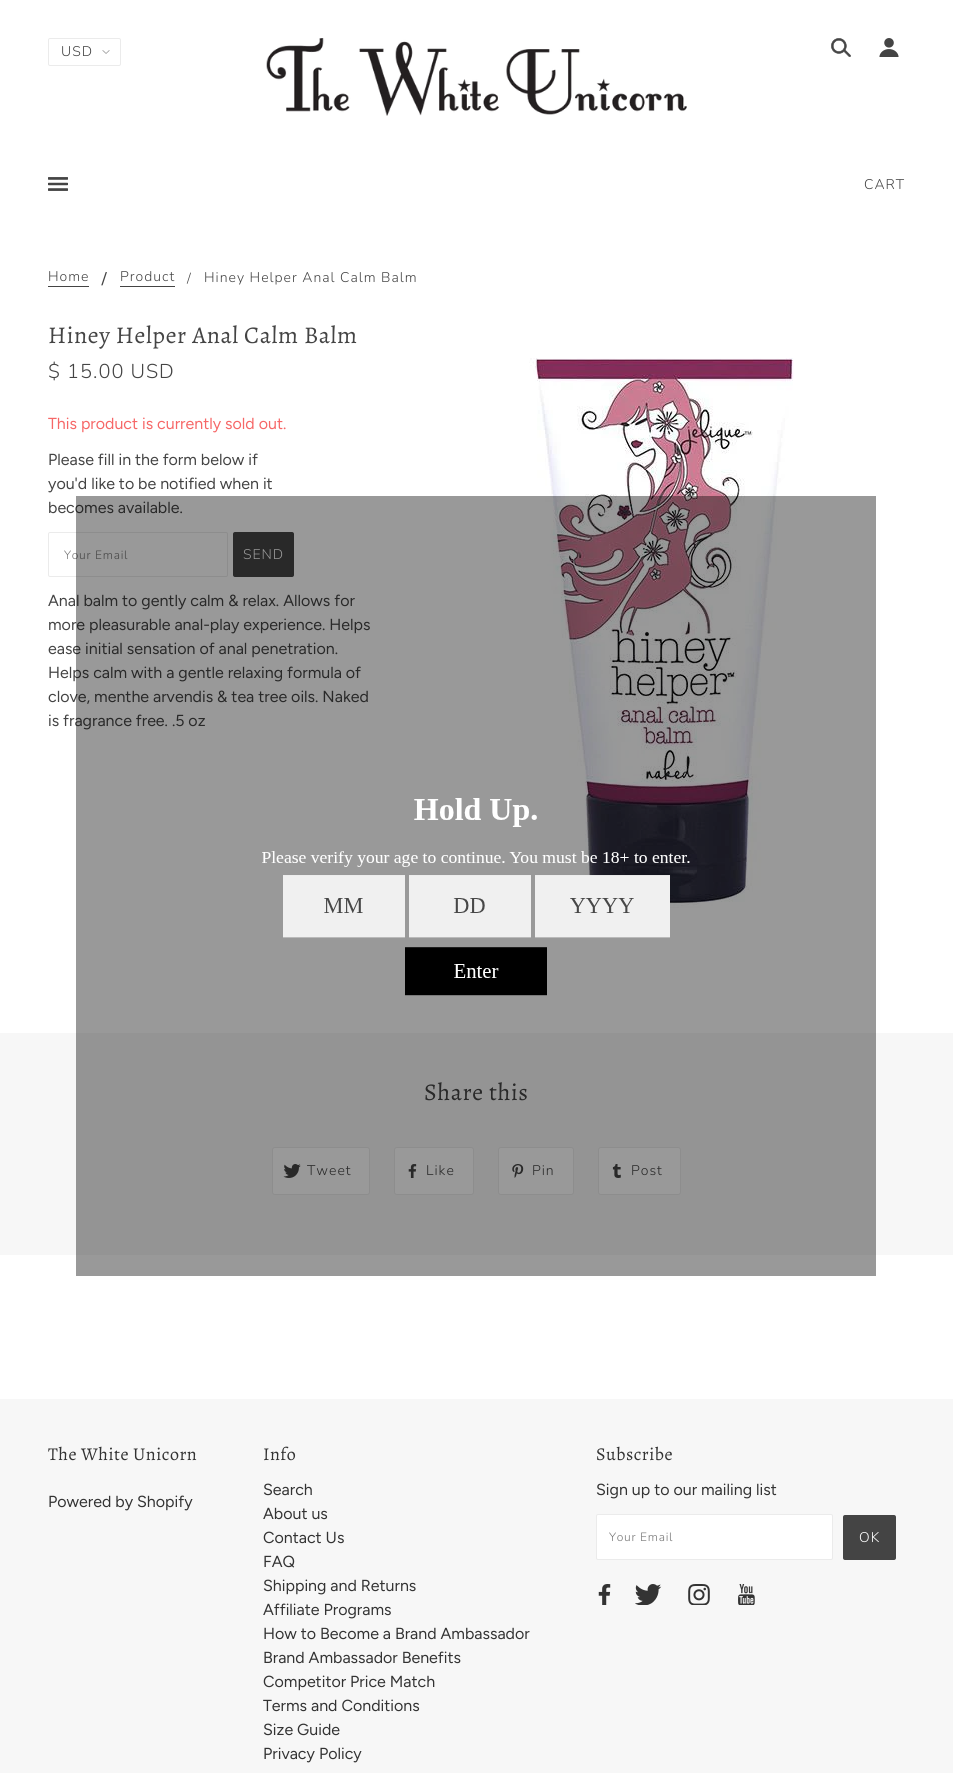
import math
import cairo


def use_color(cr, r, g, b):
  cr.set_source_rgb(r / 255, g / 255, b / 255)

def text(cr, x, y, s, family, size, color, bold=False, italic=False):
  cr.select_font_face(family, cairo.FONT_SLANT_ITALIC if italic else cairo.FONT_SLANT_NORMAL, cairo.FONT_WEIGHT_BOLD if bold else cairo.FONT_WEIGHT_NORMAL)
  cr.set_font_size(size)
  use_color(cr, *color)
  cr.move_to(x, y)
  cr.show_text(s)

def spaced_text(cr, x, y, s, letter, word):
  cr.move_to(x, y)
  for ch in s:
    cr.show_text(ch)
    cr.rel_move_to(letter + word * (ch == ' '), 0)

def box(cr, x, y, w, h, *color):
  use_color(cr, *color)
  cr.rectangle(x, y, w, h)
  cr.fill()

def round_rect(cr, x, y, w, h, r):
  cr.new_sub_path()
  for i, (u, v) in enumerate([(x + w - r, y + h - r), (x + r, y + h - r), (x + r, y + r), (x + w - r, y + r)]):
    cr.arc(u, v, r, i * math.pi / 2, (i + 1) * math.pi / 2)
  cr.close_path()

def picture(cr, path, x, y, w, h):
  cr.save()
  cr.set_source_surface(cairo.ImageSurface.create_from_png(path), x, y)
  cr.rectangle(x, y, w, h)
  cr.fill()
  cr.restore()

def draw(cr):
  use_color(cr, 255, 255, 255)
  cr.paint()
  picture(cr, "img_01.png", 102, 50, 8, 4)
  round_rect(cr, 48.5, 38.5, 72, 27, 1.5)
  use_color(cr, 235, 235, 235)
  cr.set_line_width(1)
  cr.stroke()
  picture(cr, "img_02.png", 266, 38, 421, 78)
  picture(cr, "img_03.png", 831, 38, 20, 19)
  picture(cr, "img_04.png", 879, 38, 20, 19)
  picture(cr, "img_05.png", 48, 177, 20, 14)
  box(cr, 48, 286, 41, 1, 68, 68, 68)
  box(cr, 120, 286, 55, 1, 68, 68, 68)
  round_rect(cr, 48.5, 532.5, 179, 44, 1.5)
  use_color(cr, 235, 235, 235)
  cr.stroke()
  use_color(cr, 68, 68, 68)
  round_rect(cr, 233, 532, 61, 45, 2)
  cr.fill()
  picture(cr, "img_06.png", 529, 358, 265, 550)
  box(cr, 0, 1033, 953, 222, 247, 247, 247)
  use_color(cr, 255, 255, 255)
  round_rect(cr, 272.5, 1147.5, 97, 47, 2.5)
  cr.fill_preserve()
  use_color(cr, 235, 235, 235)
  cr.stroke()
  picture(cr, "img_07.png", 283, 1164, 18, 14)
  use_color(cr, 255, 255, 255)
  round_rect(cr, 394.5, 1147.5, 79, 47, 2.5)
  cr.fill_preserve()
  use_color(cr, 235, 235, 235)
  cr.stroke()
  picture(cr, "img_08.png", 408, 1164, 9, 14)
  use_color(cr, 255, 255, 255)
  round_rect(cr, 498.5, 1147.5, 75, 47, 2.5)
  cr.fill_preserve()
  use_color(cr, 235, 235, 235)
  cr.stroke()
  picture(cr, "img_09.png", 512, 1164, 12, 14)
  use_color(cr, 255, 255, 255)
  round_rect(cr, 598.5, 1147.5, 82, 47, 2.5)
  cr.fill_preserve()
  use_color(cr, 235, 235, 235)
  cr.stroke()
  picture(cr, "img_10.png", 612, 1164, 9, 14)
  box(cr, 0, 1399, 953, 374, 247, 247, 247)
  use_color(cr, 255, 255, 255)
  round_rect(cr, 596.5, 1514.5, 236, 45, 1.5)
  cr.fill_preserve()
  use_color(cr, 235, 235, 235)
  cr.stroke()
  use_color(cr, 68, 68, 68)
  round_rect(cr, 843, 1515, 53, 45, 2)
  cr.fill()
  picture(cr, "img_11.png", 598, 1584, 13, 21)
  picture(cr, "img_12.png", 635, 1584, 27, 21)
  picture(cr, "img_13.png", 688, 1584, 22, 21)
  picture(cr, "img_14.png", 738, 1584, 17, 21)
  cr.select_font_face("Nunito Light")
  cr.set_font_size(14)
  spaced_text(cr, 61, 56, "USD", 1, 0)
  spaced_text(cr, 864, 189, "CART", 1, 0)
  spaced_text(cr, 48, 281, "Home", 1, 0)
  text(cr, 101, 284, "/", "Figtree", 16, (68, 68, 68))
  cr.select_font_face("Nunito Light")
  cr.set_font_size(14)
  spaced_text(cr, 120, 281, "Product", 1, 0)
  spaced_text(cr, 187, 283, "/", 1, 0)
  spaced_text(cr, 204, 282, "Hiney Helper Anal Calm Balm", 1, 0)
  cr.select_font_face("Alegreya")
  cr.set_font_size(24)
  spaced_text(cr, 48, 343, "Hiney Helper Anal Calm Balm", 0.6, 0)
  cr.select_font_face("Nunito Light")
  cr.set_font_size(20)
  spaced_text(cr, 48, 378, "$ 15.00 USD", 1, 0)
  text(cr, 48, 429, "This product is currently sold out.", "Figtree", 16, (246, 103, 103))
  text(cr, 48, 465, "Please fill in the form below if", "Figtree", 16, (68, 68, 68))
  text(cr, 48, 489, "you'd like to be notified when it", "Figtree", 16, (68, 68, 68))
  text(cr, 48, 513, "becomes available.", "Figtree", 16, (68, 68, 68))
  cr.select_font_face("Nunito Light")
  cr.set_font_size(12)
  use_color(cr, 117, 117, 117)
  spaced_text(cr, 64, 559, "Your Email", 0.75, 0)
  cr.set_font_size(14)
  use_color(cr, 255, 255, 255)
  spaced_text(cr, 243, 559, "SEND", 1, 0)
  text(cr, 48, 606, "Anal balm to gently calm & relax. Allows for", "Figtree", 16, (68, 68, 68))
  text(cr, 48, 630, "more pleasurable anal-play experience. Helps", "Figtree", 16, (68, 68, 68))
  text(cr, 48, 654, "ease initial sensation of anal penetration.", "Figtree", 16, (68, 68, 68))
  text(cr, 48, 678, "Helps calm with a gentle relaxing formula of", "Figtree", 16, (68, 68, 68))
  text(cr, 48, 702, "clove, menthe arvendis & tea tree oils. Naked", "Figtree", 16, (68, 68, 68))
  text(cr, 48, 726, "is fragrance free. .5 oz", "Figtree", 16, (68, 68, 68))
  cr.select_font_face("Alegreya")
  cr.set_font_size(24)
  spaced_text(cr, 424, 1100, "Share this", 0.6, 0)
  cr.select_font_face("Nunito Light")
  cr.set_font_size(14)
  spaced_text(cr, 307, 1175, "Tweet", 1, 0)
  spaced_text(cr, 426, 1175, "Like", 1, 0)
  spaced_text(cr, 532, 1175, "Pin", 1, 0)
  spaced_text(cr, 631, 1175, "Post", 1, 0)
  cr.select_font_face("Alegreya")
  cr.set_font_size(18)
  use_color(cr, 51, 51, 51)
  spaced_text(cr, 48, 1460, "The White Unicorn", 0.5, 0)
  text(cr, 48, 1507, "Powered by Shopify", "Figtree", 16, (51, 51, 51))
  cr.select_font_face("Alegreya")
  cr.set_font_size(18)
  spaced_text(cr, 263, 1460, "Info", 0.5, 0)
  text(cr, 263, 1495, "Search", "Figtree", 16, (51, 51, 51))
  text(cr, 263, 1519, "About us", "Figtree", 16, (51, 51, 51))
  text(cr, 263, 1543, "Contact Us", "Figtree", 16, (51, 51, 51))
  text(cr, 263, 1567, "FAQ", "Figtree", 16, (51, 51, 51))
  text(cr, 263, 1591, "Shipping and Returns", "Figtree", 16, (51, 51, 51))
  text(cr, 263, 1615, "Affiliate Programs", "Figtree", 16, (51, 51, 51))
  text(cr, 263, 1639, "How to Become a Brand Ambassador", "Figtree", 16, (51, 51, 51))
  text(cr, 263, 1663, "Brand Ambassador Benefits", "Figtree", 16, (51, 51, 51))
  text(cr, 263, 1687, "Competitor Price Match", "Figtree", 16, (51, 51, 51))
  text(cr, 263, 1711, "Terms and Conditions", "Figtree", 16, (51, 51, 51))
  text(cr, 263, 1735, "Size Guide", "Figtree", 16, (51, 51, 51))
  text(cr, 263, 1759, "Privacy Policy", "Figtree", 16, (51, 51, 51))
  cr.select_font_face("Alegreya")
  cr.set_font_size(18)
  spaced_text(cr, 596, 1460, "Subscribe", 0.5, 0)
  text(cr, 596, 1495, "Sign up to our mailing list", "Figtree", 16, (51, 51, 51))
  cr.select_font_face("Nunito Light")
  cr.set_font_size(12)
  use_color(cr, 117, 117, 117)
  spaced_text(cr, 609, 1541, "Your Email", 0.75, 0)
  cr.set_font_size(14)
  use_color(cr, 255, 255, 255)
  spaced_text(cr, 859, 1542, "OK", 1, 0)
  picture(cr, "img_15.png", 76, 496, 800, 780)


surface = cairo.ImageSurface(cairo.FORMAT_RGB24, 953, 1773)
cr = cairo.Context(surface)
options = cairo.FontOptions()
options.set_hint_metrics(cairo.HINT_METRICS_OFF)
options.set_hint_style(cairo.HINT_STYLE_NONE)
cr.set_font_options(options)
cr.set_miter_limit(4)
draw(cr)
surface.write_to_png("out.png")
